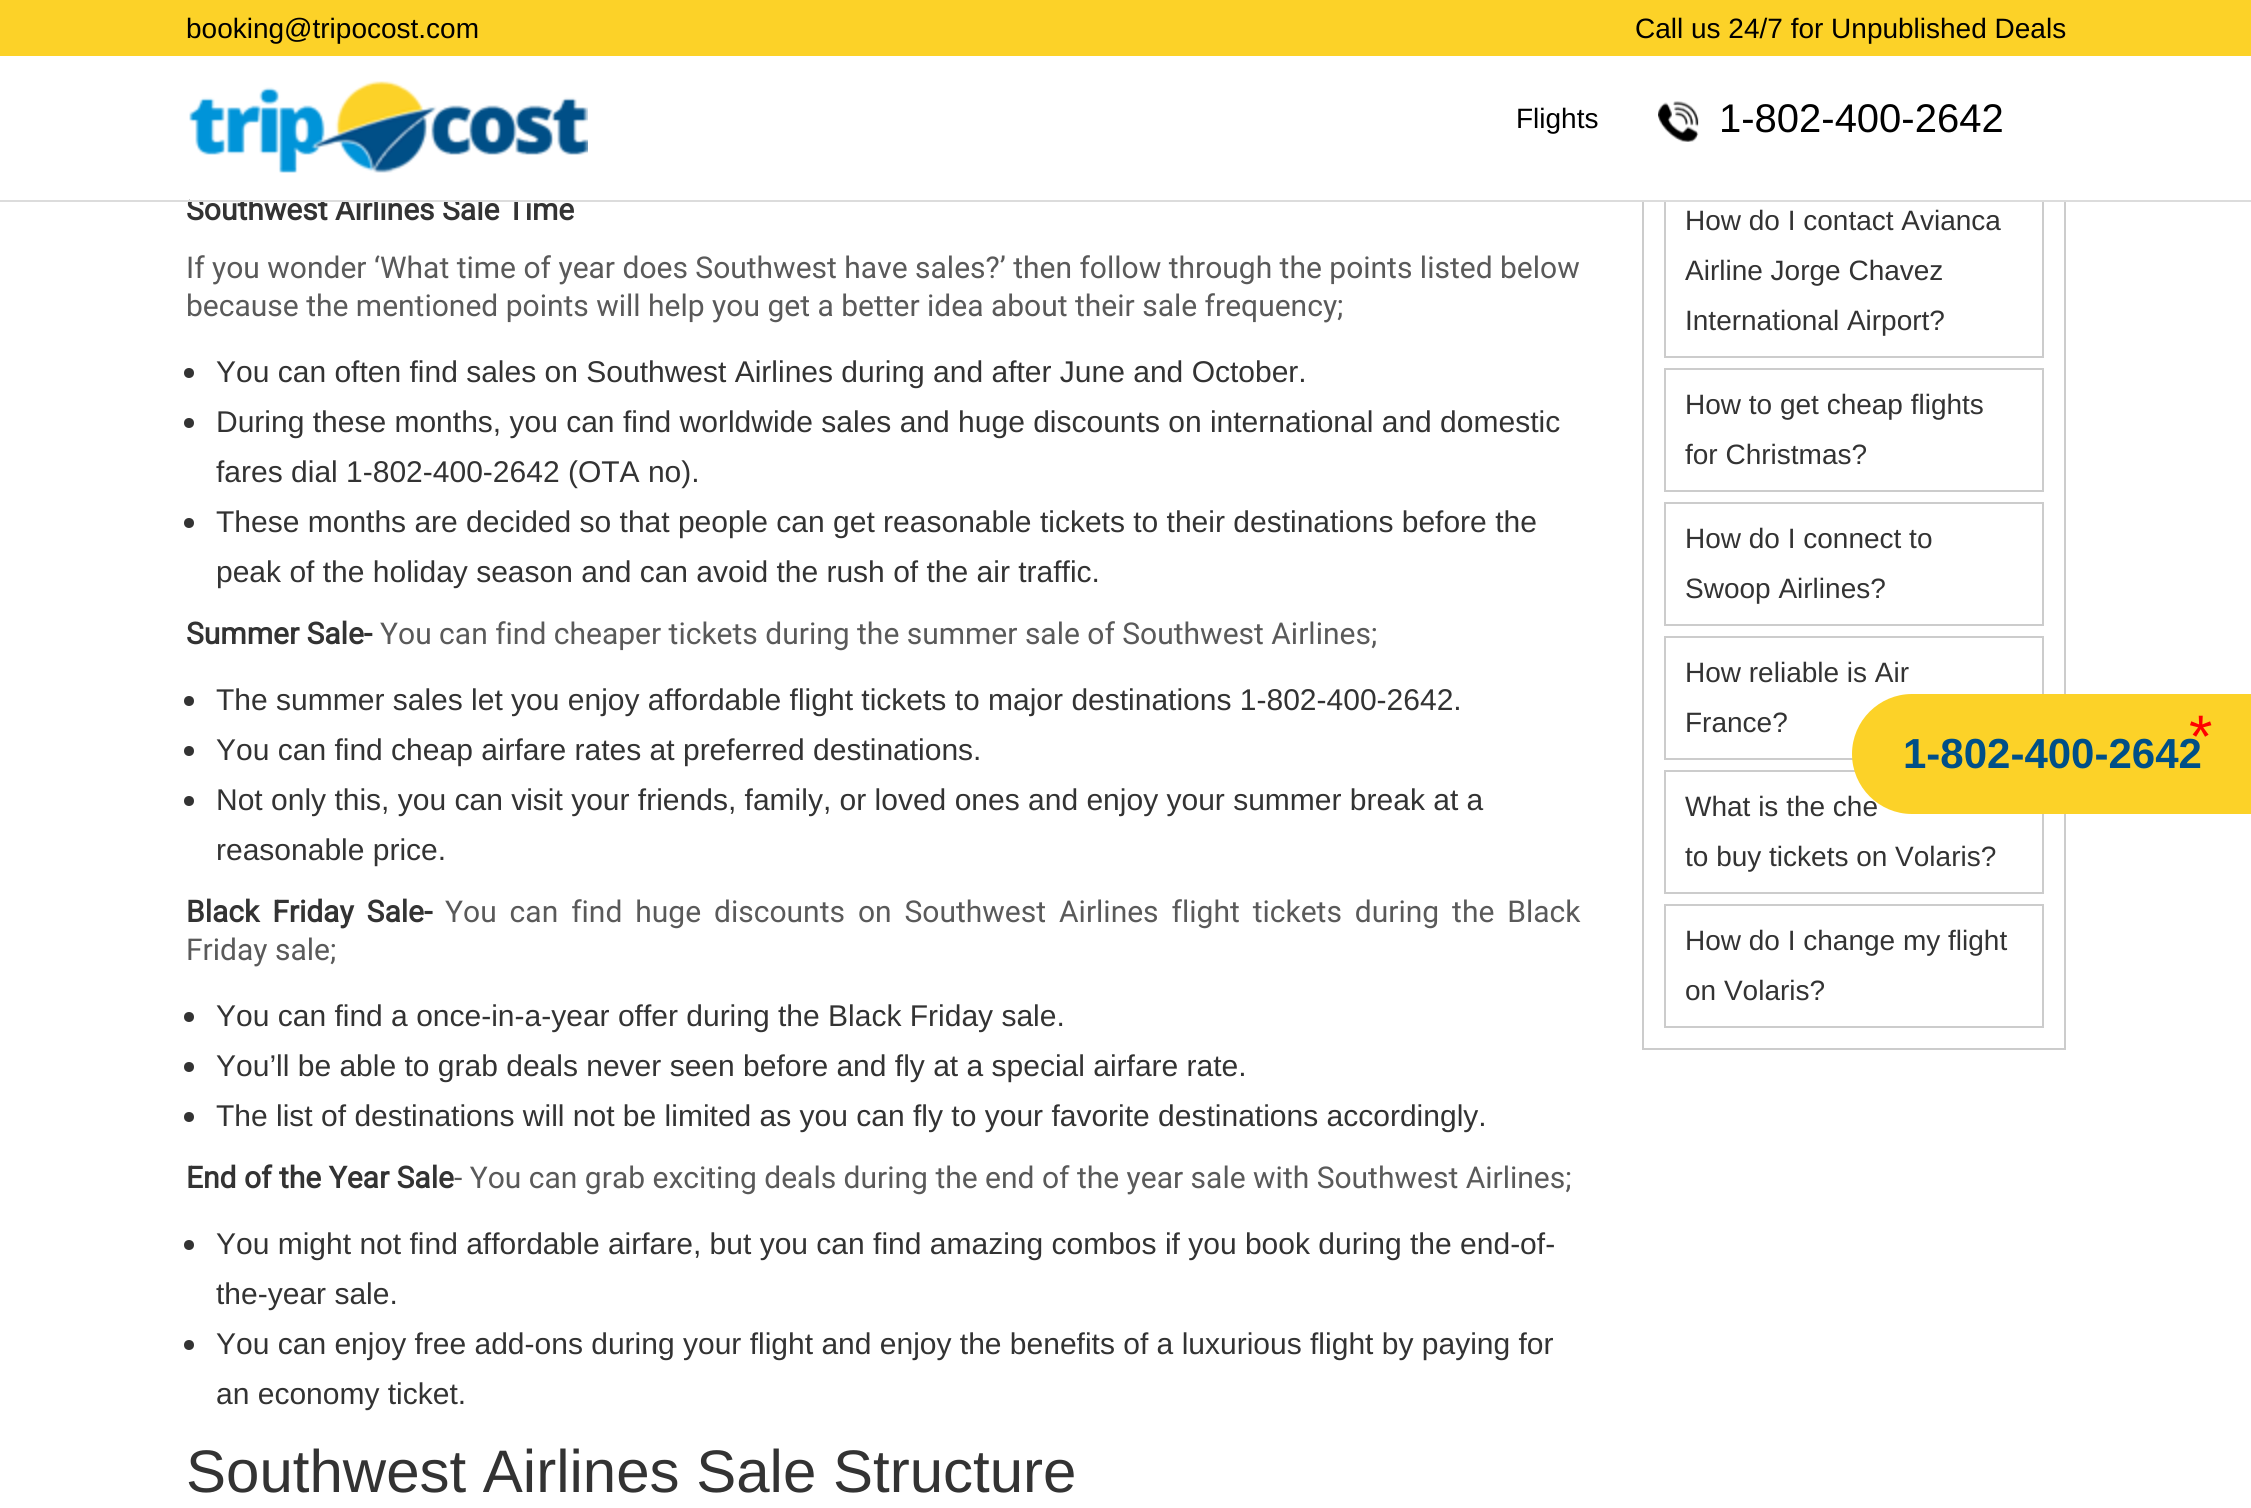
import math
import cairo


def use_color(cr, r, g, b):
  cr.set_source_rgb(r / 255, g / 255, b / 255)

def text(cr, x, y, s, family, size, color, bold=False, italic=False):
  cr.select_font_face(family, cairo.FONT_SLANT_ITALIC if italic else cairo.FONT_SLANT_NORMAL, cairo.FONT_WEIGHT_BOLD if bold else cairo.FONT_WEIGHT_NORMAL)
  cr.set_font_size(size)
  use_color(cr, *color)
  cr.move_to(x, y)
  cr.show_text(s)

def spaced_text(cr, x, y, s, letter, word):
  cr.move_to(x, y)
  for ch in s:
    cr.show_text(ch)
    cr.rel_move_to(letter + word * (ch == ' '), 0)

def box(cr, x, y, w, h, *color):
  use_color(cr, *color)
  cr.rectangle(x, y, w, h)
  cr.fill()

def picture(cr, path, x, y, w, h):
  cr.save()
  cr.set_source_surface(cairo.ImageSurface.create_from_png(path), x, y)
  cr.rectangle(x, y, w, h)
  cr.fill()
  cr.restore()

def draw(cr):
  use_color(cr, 255, 255, 255)
  cr.paint()
  cr.rectangle(1643, -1, 422, 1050)
  use_color(cr, 204, 204, 204)
  cr.stroke()
  box(cr, 0, 0, 2251, 56, 252, 210, 40)
  use_color(cr, 51, 51, 51)
  cr.arc(189, 373, 5, 0, 2 * math.pi)
  cr.fill()
  cr.arc(189, 423, 5, 0, 2 * math.pi)
  cr.fill()
  cr.arc(189, 523, 5, 0, 2 * math.pi)
  cr.fill()
  cr.arc(189, 701, 5, 0, 2 * math.pi)
  cr.fill()
  cr.arc(189, 751, 5, 0, 2 * math.pi)
  cr.fill()
  cr.arc(189, 801, 5, 0, 2 * math.pi)
  cr.fill()
  cr.arc(189, 1017, 5, 0, 2 * math.pi)
  cr.fill()
  cr.arc(189, 1067, 5, 0, 2 * math.pi)
  cr.fill()
  cr.arc(189, 1117, 5, 0, 2 * math.pi)
  cr.fill()
  cr.arc(189, 1245, 5, 0, 2 * math.pi)
  cr.fill()
  cr.arc(189, 1345, 5, 0, 2 * math.pi)
  cr.fill()
  cr.rectangle(1665, 185, 378, 172)
  use_color(cr, 204, 204, 204)
  cr.stroke()
  cr.rectangle(1665, 369, 378, 122)
  cr.stroke()
  cr.rectangle(1665, 503, 378, 122)
  cr.stroke()
  cr.rectangle(1665, 637, 378, 122)
  cr.stroke()
  cr.rectangle(1665, 771, 378, 122)
  cr.stroke()
  cr.rectangle(1665, 905, 378, 122)
  cr.stroke()
  text(cr, 186, 38, "booking@tripocost.com", "Liberation Sans", 28, (0, 0, 0))
  text(cr, 1635, 38, "Call us 24/7 for Unpublished Deals", "Liberation Sans", 28, (0, 0, 0))
  text(cr, 186, 220, "Southwest Airlines Sale Time", "Roboto", 30, (51, 51, 51), bold=True)
  box(cr, 190, 56, 1876, 144, 255, 255, 255)
  text(cr, 1719, 132, "1-802-400-2642", "Liberation Sans", 40, (0, 0, 0))
  picture(cr, "img_02.png", 1658, 101, 41, 41)
  text(cr, 1516, 128, "Flights", "Liberation Sans", 28, (0, 0, 0))
  picture(cr, "img_01.png", 189, 81, 399, 92)
  box(cr, 0, 200, 2251, 2, 220, 220, 220)
  text(cr, 186, 278, "If you wonder ‘What time of year does Southwest have sales?’ then follow through the points listed below", "Roboto", 30, (90, 90, 90))
  text(cr, 186, 316, "because the mentioned points will help you get a better idea about their sale frequency;", "Roboto", 30, (90, 90, 90))
  text(cr, 216, 382, "You can often find sales on Southwest Airlines during and after June and October.", "Liberation Sans", 30, (51, 51, 51))
  text(cr, 216, 432, "During these months, you can find worldwide sales and huge discounts on international and domestic", "Liberation Sans", 30, (51, 51, 51))
  text(cr, 216, 482, "fares dial 1-802-400-2642 (OTA no).", "Liberation Sans", 30, (51, 51, 51))
  text(cr, 216, 532, "These months are decided so that people can get reasonable tickets to their destinations before the", "Liberation Sans", 30, (51, 51, 51))
  text(cr, 216, 582, "peak of the holiday season and can avoid the rush of the air traffic.", "Liberation Sans", 30, (51, 51, 51))
  text(cr, 186, 644, "Summer Sale-", "Roboto", 30, (51, 51, 51), bold=True)
  text(cr, 380, 644, "You can find cheaper tickets during the summer sale of Southwest Airlines;", "Roboto", 30, (90, 90, 90))
  text(cr, 216, 710, "The summer sales let you enjoy affordable flight tickets to major destinations 1-802-400-2642.", "Liberation Sans", 30, (51, 51, 51))
  text(cr, 216, 760, "You can find cheap airfare rates at preferred destinations.", "Liberation Sans", 30, (51, 51, 51))
  text(cr, 216, 810, "Not only this, you can visit your friends, family, or loved ones and enjoy your summer break at a", "Liberation Sans", 30, (51, 51, 51))
  text(cr, 216, 860, "reasonable price.", "Liberation Sans", 30, (51, 51, 51))
  cr.select_font_face("Roboto", cairo.FONT_SLANT_NORMAL, cairo.FONT_WEIGHT_BOLD)
  spaced_text(cr, 186, 922, "Black Friday Sale-", 0, 5.5)
  cr.select_font_face("Roboto")
  use_color(cr, 90, 90, 90)
  spaced_text(cr, 445, 922, "You can find huge discounts on Southwest Airlines flight tickets during the Black", 0, 5.5)
  text(cr, 186, 960, "Friday sale;", "Roboto", 30, (90, 90, 90))
  text(cr, 216, 1026, "You can find a once-in-a-year offer during the Black Friday sale.", "Liberation Sans", 30, (51, 51, 51))
  text(cr, 216, 1076, "You’ll be able to grab deals never seen before and fly at a special airfare rate.", "Liberation Sans", 30, (51, 51, 51))
  text(cr, 216, 1126, "The list of destinations will not be limited as you can fly to your favorite destinations accordingly.", "Liberation Sans", 30, (51, 51, 51))
  text(cr, 186, 1188, "End of the Year Sale", "Roboto", 30, (51, 51, 51), bold=True)
  text(cr, 454, 1188, "- You can grab exciting deals during the end of the year sale with Southwest Airlines;", "Roboto", 30, (90, 90, 90))
  text(cr, 216, 1254, "You might not find affordable airfare, but you can find amazing combos if you book during the end-of-", "Liberation Sans", 30, (51, 51, 51))
  text(cr, 216, 1304, "the-year sale.", "Liberation Sans", 30, (51, 51, 51))
  text(cr, 216, 1354, "You can enjoy free add-ons during your flight and enjoy the benefits of a luxurious flight by paying for", "Liberation Sans", 30, (51, 51, 51))
  text(cr, 216, 1404, "an economy ticket.", "Liberation Sans", 30, (51, 51, 51))
  text(cr, 186, 1492, "Southwest Airlines Sale Structure", "Liberation Sans", 60, (51, 51, 51))
  text(cr, 1685, 230, "How do I contact Avianca", "Liberation Sans", 28, (51, 51, 51))
  text(cr, 1685, 280, "Airline Jorge Chavez", "Liberation Sans", 28, (51, 51, 51))
  text(cr, 1685, 330, "International Airport?", "Liberation Sans", 28, (51, 51, 51))
  text(cr, 1685, 414, "How to get cheap flights", "Liberation Sans", 28, (51, 51, 51))
  text(cr, 1685, 464, "for Christmas?", "Liberation Sans", 28, (51, 51, 51))
  text(cr, 1685, 548, "How do I connect to", "Liberation Sans", 28, (51, 51, 51))
  text(cr, 1685, 598, "Swoop Airlines?", "Liberation Sans", 28, (51, 51, 51))
  text(cr, 1685, 682, "How reliable is Air", "Liberation Sans", 28, (51, 51, 51))
  text(cr, 1685, 732, "France?", "Liberation Sans", 28, (51, 51, 51))
  text(cr, 1685, 816, "What is the che", "Liberation Sans", 28, (51, 51, 51))
  text(cr, 1685, 866, "to buy tickets on Volaris?", "Liberation Sans", 28, (51, 51, 51))
  text(cr, 1685, 950, "How do I change my flight", "Liberation Sans", 28, (51, 51, 51))
  text(cr, 1685, 1000, "on Volaris?", "Liberation Sans", 28, (51, 51, 51))
  use_color(cr, 252, 210, 40)
  cr.new_path()
  cr.move_to(1912, 694)
  cr.line_to(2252, 694)
  cr.line_to(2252, 814)
  cr.line_to(1912, 814)
  cr.curve_to(1879, 814, 1852, 787, 1852, 754)
  cr.curve_to(1852, 721, 1879, 694, 1912, 694)
  cr.close_path()
  cr.fill()
  text(cr, 2189, 757, "*", "Liberation Sans", 60, (255, 0, 0))
  text(cr, 1903, 768, "1-802-400-2642", "Liberation Sans", 42, (0, 79, 135), bold=True)


surface = cairo.ImageSurface(cairo.FORMAT_RGB24, 2251, 1508)
cr = cairo.Context(surface)
options = cairo.FontOptions()
options.set_hint_metrics(cairo.HINT_METRICS_OFF)
options.set_hint_style(cairo.HINT_STYLE_NONE)
cr.set_font_options(options)
cr.set_miter_limit(4)
draw(cr)
surface.write_to_png("out.png")
